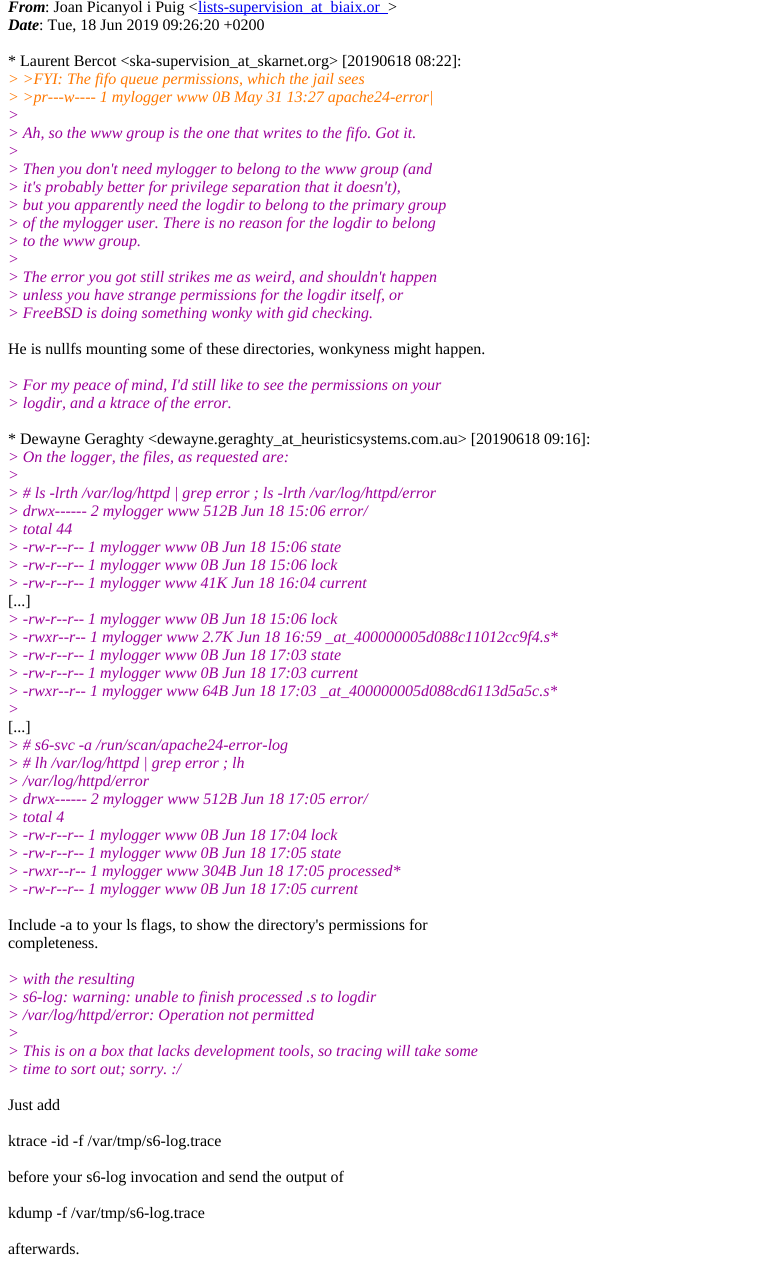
import math
import cairo


def use_color(cr, r, g, b):
  cr.set_source_rgb(r / 255, g / 255, b / 255)

def text(cr, x, y, s, family, size, color, bold=False, italic=False):
  cr.select_font_face(family, cairo.FONT_SLANT_ITALIC if italic else cairo.FONT_SLANT_NORMAL, cairo.FONT_WEIGHT_BOLD if bold else cairo.FONT_WEIGHT_NORMAL)
  cr.set_font_size(size)
  use_color(cr, *color)
  cr.move_to(x, y)
  cr.show_text(s)

def box(cr, x, y, w, h, *color):
  use_color(cr, *color)
  cr.rectangle(x, y, w, h)
  cr.fill()

def draw(cr):
  use_color(cr, 255, 255, 255)
  cr.paint()
  box(cr, 198, 13, 190, 1, 0, 0, 238)
  text(cr, 8, 12, "From", "Liberation Serif", 16, (0, 0, 0), bold=True, italic=True)
  text(cr, 45, 12, ": Joan Picanyol i Puig <", "Liberation Serif", 16, (0, 0, 0))
  text(cr, 198, 12, "lists-supervision_at_biaix.or", "Liberation Serif", 16, (0, 0, 238))
  text(cr, 388, 12, ">", "Liberation Serif", 16, (0, 0, 0))
  text(cr, 8, 30, "Date", "Liberation Serif", 16, (0, 0, 0), bold=True, italic=True)
  text(cr, 39, 30, ": Tue, 18 Jun 2019 09:26:20 +0200", "Liberation Serif", 16, (0, 0, 0))
  text(cr, 8, 66, "* Laurent Bercot <ska-supervision_at_skarnet.org> [20190618 08:22]:", "Liberation Serif", 16, (0, 0, 0))
  text(cr, 8, 84, "> >FYI: The fifo queue permissions, which the jail sees", "Liberation Serif", 16, (255, 119, 0), italic=True)
  text(cr, 8, 102, "> >pr---w---- 1 mylogger www 0B May 31 13:27 apache24-error|", "Liberation Serif", 16, (255, 119, 0), italic=True)
  text(cr, 8, 120, ">", "Liberation Serif", 16, (153, 0, 153), italic=True)
  text(cr, 8, 138, "> Ah, so the www group is the one that writes to the fifo. Got it.", "Liberation Serif", 16, (153, 0, 153), italic=True)
  text(cr, 8, 156, ">", "Liberation Serif", 16, (153, 0, 153), italic=True)
  text(cr, 8, 174, "> Then you don't need mylogger to belong to the www group (and", "Liberation Serif", 16, (153, 0, 153), italic=True)
  text(cr, 8, 192, "> it's probably better for privilege separation that it doesn't),", "Liberation Serif", 16, (153, 0, 153), italic=True)
  text(cr, 8, 210, "> but you apparently need the logdir to belong to the primary group", "Liberation Serif", 16, (153, 0, 153), italic=True)
  text(cr, 8, 228, "> of the mylogger user. There is no reason for the logdir to belong", "Liberation Serif", 16, (153, 0, 153), italic=True)
  text(cr, 8, 246, "> to the www group.", "Liberation Serif", 16, (153, 0, 153), italic=True)
  text(cr, 8, 264, ">", "Liberation Serif", 16, (153, 0, 153), italic=True)
  text(cr, 8, 282, "> The error you got still strikes me as weird, and shouldn't happen", "Liberation Serif", 16, (153, 0, 153), italic=True)
  text(cr, 8, 300, "> unless you have strange permissions for the logdir itself, or", "Liberation Serif", 16, (153, 0, 153), italic=True)
  text(cr, 8, 318, "> FreeBSD is doing something wonky with gid checking.", "Liberation Serif", 16, (153, 0, 153), italic=True)
  text(cr, 8, 354, "He is nullfs mounting some of these directories, wonkyness might happen.", "Liberation Serif", 16, (0, 0, 0))
  text(cr, 8, 390, "> For my peace of mind, I'd still like to see the permissions on your", "Liberation Serif", 16, (153, 0, 153), italic=True)
  text(cr, 8, 408, "> logdir, and a ktrace of the error.", "Liberation Serif", 16, (153, 0, 153), italic=True)
  text(cr, 8, 444, "* Dewayne Geraghty <dewayne.geraghty_at_heuristicsystems.com.au> [20190618 09:16]:", "Liberation Serif", 16, (0, 0, 0))
  text(cr, 8, 462, "> On the logger, the files, as requested are:", "Liberation Serif", 16, (153, 0, 153), italic=True)
  text(cr, 8, 480, ">", "Liberation Serif", 16, (153, 0, 153), italic=True)
  text(cr, 8, 498, "> # ls -lrth /var/log/httpd | grep error ; ls -lrth /var/log/httpd/error", "Liberation Serif", 16, (153, 0, 153), italic=True)
  text(cr, 8, 516, "> drwx------ 2 mylogger www 512B Jun 18 15:06 error/", "Liberation Serif", 16, (153, 0, 153), italic=True)
  text(cr, 8, 534, "> total 44", "Liberation Serif", 16, (153, 0, 153), italic=True)
  text(cr, 8, 552, "> -rw-r--r-- 1 mylogger www 0B Jun 18 15:06 state", "Liberation Serif", 16, (153, 0, 153), italic=True)
  text(cr, 8, 570, "> -rw-r--r-- 1 mylogger www 0B Jun 18 15:06 lock", "Liberation Serif", 16, (153, 0, 153), italic=True)
  text(cr, 8, 588, "> -rw-r--r-- 1 mylogger www 41K Jun 18 16:04 current", "Liberation Serif", 16, (153, 0, 153), italic=True)
  text(cr, 8, 606, "[...]", "Liberation Serif", 16, (0, 0, 0))
  text(cr, 8, 624, "> -rw-r--r-- 1 mylogger www 0B Jun 18 15:06 lock", "Liberation Serif", 16, (153, 0, 153), italic=True)
  text(cr, 8, 642, "> -rwxr--r-- 1 mylogger www 2.7K Jun 18 16:59 _at_400000005d088c11012cc9f4.s*", "Liberation Serif", 16, (153, 0, 153), italic=True)
  text(cr, 8, 660, "> -rw-r--r-- 1 mylogger www 0B Jun 18 17:03 state", "Liberation Serif", 16, (153, 0, 153), italic=True)
  text(cr, 8, 678, "> -rw-r--r-- 1 mylogger www 0B Jun 18 17:03 current", "Liberation Serif", 16, (153, 0, 153), italic=True)
  text(cr, 8, 696, "> -rwxr--r-- 1 mylogger www 64B Jun 18 17:03 _at_400000005d088cd6113d5a5c.s*", "Liberation Serif", 16, (153, 0, 153), italic=True)
  text(cr, 8, 714, ">", "Liberation Serif", 16, (153, 0, 153), italic=True)
  text(cr, 8, 732, "[...]", "Liberation Serif", 16, (0, 0, 0))
  text(cr, 8, 750, "> # s6-svc -a /run/scan/apache24-error-log", "Liberation Serif", 16, (153, 0, 153), italic=True)
  text(cr, 8, 768, "> # lh /var/log/httpd | grep error ; lh", "Liberation Serif", 16, (153, 0, 153), italic=True)
  text(cr, 8, 786, "> /var/log/httpd/error", "Liberation Serif", 16, (153, 0, 153), italic=True)
  text(cr, 8, 804, "> drwx------ 2 mylogger www 512B Jun 18 17:05 error/", "Liberation Serif", 16, (153, 0, 153), italic=True)
  text(cr, 8, 822, "> total 4", "Liberation Serif", 16, (153, 0, 153), italic=True)
  text(cr, 8, 840, "> -rw-r--r-- 1 mylogger www 0B Jun 18 17:04 lock", "Liberation Serif", 16, (153, 0, 153), italic=True)
  text(cr, 8, 858, "> -rw-r--r-- 1 mylogger www 0B Jun 18 17:05 state", "Liberation Serif", 16, (153, 0, 153), italic=True)
  text(cr, 8, 876, "> -rwxr--r-- 1 mylogger www 304B Jun 18 17:05 processed*", "Liberation Serif", 16, (153, 0, 153), italic=True)
  text(cr, 8, 894, "> -rw-r--r-- 1 mylogger www 0B Jun 18 17:05 current", "Liberation Serif", 16, (153, 0, 153), italic=True)
  text(cr, 8, 930, "Include -a to your ls flags, to show the directory's permissions for", "Liberation Serif", 16, (0, 0, 0))
  text(cr, 8, 948, "completeness.", "Liberation Serif", 16, (0, 0, 0))
  text(cr, 8, 984, "> with the resulting", "Liberation Serif", 16, (153, 0, 153), italic=True)
  text(cr, 8, 1002, "> s6-log: warning: unable to finish processed .s to logdir", "Liberation Serif", 16, (153, 0, 153), italic=True)
  text(cr, 8, 1020, "> /var/log/httpd/error: Operation not permitted", "Liberation Serif", 16, (153, 0, 153), italic=True)
  text(cr, 8, 1038, ">", "Liberation Serif", 16, (153, 0, 153), italic=True)
  text(cr, 8, 1056, "> This is on a box that lacks development tools, so tracing will take some", "Liberation Serif", 16, (153, 0, 153), italic=True)
  text(cr, 8, 1074, "> time to sort out; sorry. :/", "Liberation Serif", 16, (153, 0, 153), italic=True)
  text(cr, 8, 1110, "Just add", "Liberation Serif", 16, (0, 0, 0))
  text(cr, 8, 1146, "ktrace -id -f /var/tmp/s6-log.trace", "Liberation Serif", 16, (0, 0, 0))
  text(cr, 8, 1182, "before your s6-log invocation and send the output of", "Liberation Serif", 16, (0, 0, 0))
  text(cr, 8, 1218, "kdump -f /var/tmp/s6-log.trace", "Liberation Serif", 16, (0, 0, 0))
  text(cr, 8, 1254, "afterwards.", "Liberation Serif", 16, (0, 0, 0))


surface = cairo.ImageSurface(cairo.FORMAT_RGB24, 770, 1284)
cr = cairo.Context(surface)
options = cairo.FontOptions()
options.set_hint_metrics(cairo.HINT_METRICS_OFF)
options.set_hint_style(cairo.HINT_STYLE_NONE)
cr.set_font_options(options)
cr.set_miter_limit(4)
draw(cr)
surface.write_to_png("out.png")
